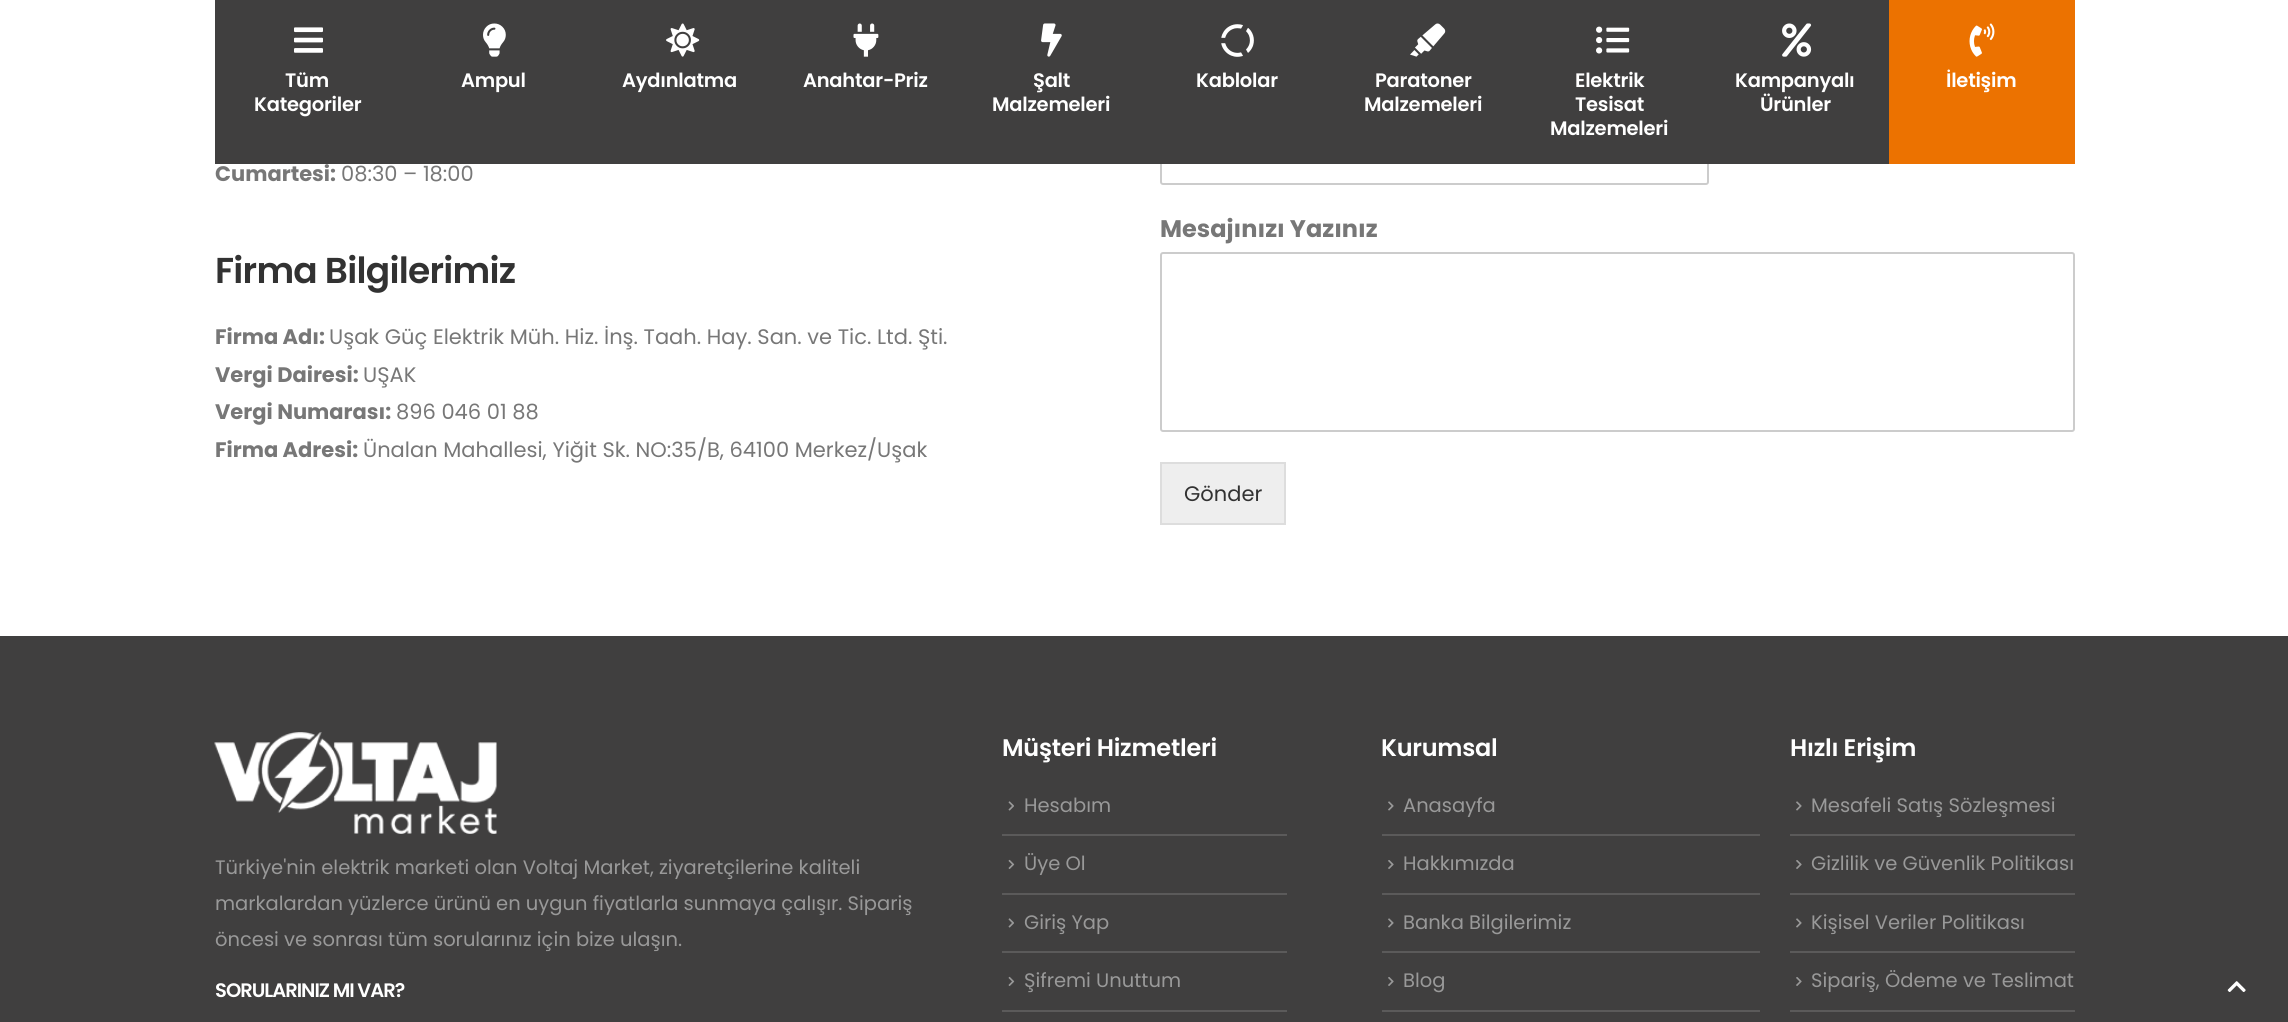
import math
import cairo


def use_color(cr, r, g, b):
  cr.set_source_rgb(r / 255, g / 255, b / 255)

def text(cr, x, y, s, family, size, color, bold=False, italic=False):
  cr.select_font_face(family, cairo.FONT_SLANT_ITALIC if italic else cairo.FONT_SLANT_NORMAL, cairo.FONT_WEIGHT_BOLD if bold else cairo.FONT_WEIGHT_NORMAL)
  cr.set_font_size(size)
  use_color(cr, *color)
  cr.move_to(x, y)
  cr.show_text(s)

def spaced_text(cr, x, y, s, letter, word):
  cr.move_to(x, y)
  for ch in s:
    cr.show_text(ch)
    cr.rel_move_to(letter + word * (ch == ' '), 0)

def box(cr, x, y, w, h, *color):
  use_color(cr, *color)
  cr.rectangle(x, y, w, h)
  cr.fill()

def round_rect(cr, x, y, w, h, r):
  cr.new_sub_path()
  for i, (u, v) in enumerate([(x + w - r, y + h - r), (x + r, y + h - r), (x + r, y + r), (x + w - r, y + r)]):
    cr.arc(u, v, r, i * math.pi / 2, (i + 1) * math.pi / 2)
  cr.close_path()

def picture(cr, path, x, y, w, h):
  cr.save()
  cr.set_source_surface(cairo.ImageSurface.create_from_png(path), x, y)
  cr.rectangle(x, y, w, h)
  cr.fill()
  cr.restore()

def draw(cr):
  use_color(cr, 255, 255, 255)
  cr.paint()
  round_rect(cr, 1161, 129, 547, 55, 2)
  use_color(cr, 204, 204, 204)
  cr.stroke()
  box(cr, 215, 0, 1674, 164, 64, 63, 63)
  picture(cr, "img_01.png", 294, 27, 29, 26)
  picture(cr, "img_02.png", 483, 23, 23, 34)
  picture(cr, "img_03.png", 666, 23, 34, 34)
  picture(cr, "img_04.png", 853, 23, 26, 34)
  picture(cr, "img_05.png", 1041, 23, 21, 34)
  picture(cr, "img_06.png", 1221, 24, 33, 33)
  picture(cr, "img_07.png", 1410, 23, 36, 34)
  picture(cr, "img_08.png", 1596, 26, 34, 28)
  picture(cr, "img_09.png", 1782, 23, 30, 34)
  box(cr, 1889, 0, 186, 164, 236, 114, 0)
  picture(cr, "img_10.png", 1969, 23, 26, 34)
  round_rect(cr, 1161, 253, 913, 178, 2)
  use_color(cr, 204, 204, 204)
  cr.stroke()
  use_color(cr, 238, 238, 238)
  cr.rectangle(1161, 463, 124, 61)
  cr.fill_preserve()
  use_color(cr, 221, 221, 221)
  cr.stroke()
  box(cr, 0, 636, 2288, 386, 64, 63, 63)
  picture(cr, "img_11.png", 214, 732, 283, 102)
  picture(cr, "img_12.png", 1008, 801, 6, 10)
  box(cr, 1002, 834, 285, 2, 91, 90, 90)
  picture(cr, "img_13.png", 1008, 859, 7, 10)
  box(cr, 1002, 893, 285, 2, 91, 90, 90)
  picture(cr, "img_12.png", 1008, 918, 6, 10)
  box(cr, 1002, 951, 285, 2, 91, 90, 90)
  picture(cr, "img_13.png", 1008, 976, 7, 10)
  box(cr, 1002, 1010, 285, 2, 91, 90, 90)
  picture(cr, "img_14.png", 1388, 801, 6, 10)
  box(cr, 1382, 834, 378, 2, 91, 90, 90)
  picture(cr, "img_15.png", 1388, 860, 6, 9)
  box(cr, 1382, 893, 378, 2, 91, 90, 90)
  picture(cr, "img_14.png", 1388, 918, 6, 10)
  box(cr, 1382, 951, 378, 2, 91, 90, 90)
  picture(cr, "img_15.png", 1388, 977, 6, 9)
  box(cr, 1382, 1010, 378, 2, 91, 90, 90)
  picture(cr, "img_14.png", 1796, 801, 6, 10)
  box(cr, 1790, 834, 285, 2, 91, 90, 90)
  picture(cr, "img_15.png", 1796, 860, 6, 9)
  box(cr, 1790, 893, 285, 2, 91, 90, 90)
  picture(cr, "img_14.png", 1796, 918, 6, 10)
  box(cr, 1790, 951, 285, 2, 91, 90, 90)
  picture(cr, "img_15.png", 1796, 977, 6, 9)
  box(cr, 1790, 1010, 285, 2, 91, 90, 90)
  picture(cr, "img_16.png", 2227, 981, 19, 11)
  cr.select_font_face("Poppins SemiBold")
  cr.set_font_size(19.5)
  use_color(cr, 255, 255, 255)
  spaced_text(cr, 285, 87, "Tüm", -0.25, 0)
  spaced_text(cr, 254, 111, "Kategoriler", -0.25, 0)
  spaced_text(cr, 461, 87, "Ampul", -0.25, 0)
  spaced_text(cr, 622, 87, "Aydınlatma", -0.25, 0)
  spaced_text(cr, 803, 87, "Anahtar-Priz", -0.25, 0)
  spaced_text(cr, 1033, 87, "Şalt", -0.25, 0)
  spaced_text(cr, 992, 111, "Malzemeleri", -0.25, 0)
  spaced_text(cr, 1196, 87, "Kablolar", -0.25, 0)
  spaced_text(cr, 1375, 87, "Paratoner", -0.25, 0)
  spaced_text(cr, 1364, 111, "Malzemeleri", -0.25, 0)
  spaced_text(cr, 1575, 87, "Elektrik", -0.25, 0)
  spaced_text(cr, 1575, 111, "Tesisat", -0.25, 0)
  spaced_text(cr, 1550, 135, "Malzemeleri", -0.25, 0)
  spaced_text(cr, 1735, 87, "Kampanyalı", -0.25, 0)
  spaced_text(cr, 1760, 111, "Ürünler", -0.25, 0)
  spaced_text(cr, 1946, 87, "İletişim", -0.25, 0)
  text(cr, 215, 181, "Cumartesi:", "Poppins", 21, (119, 119, 119), bold=True)
  text(cr, 341, 181, "08:30 – 18:00", "Poppins", 21, (119, 119, 119))
  cr.select_font_face("Poppins SemiBold")
  cr.set_font_size(36)
  use_color(cr, 50, 50, 50)
  spaced_text(cr, 215, 283, "Firma Bilgilerimiz", -0.75, 0)
  text(cr, 215, 344, "Firma Adı:", "Poppins", 21, (119, 119, 119), bold=True)
  text(cr, 329, 344, "Uşak Güç Elektrik Müh. Hiz. İnş. Taah. Hay. San. ve Tic. Ltd. Şti.", "Poppins", 21, (119, 119, 119))
  text(cr, 215, 382, "Vergi Dairesi:", "Poppins", 21, (119, 119, 119), bold=True)
  text(cr, 363, 382, "UŞAK", "Poppins", 21, (119, 119, 119))
  text(cr, 215, 419, "Vergi Numarası:", "Poppins", 21, (119, 119, 119), bold=True)
  text(cr, 396, 419, "896 046 01 88", "Poppins", 21, (119, 119, 119))
  text(cr, 215, 457, "Firma Adresi:", "Poppins", 21, (119, 119, 119), bold=True)
  text(cr, 363, 457, "Ünalan Mahallesi, Yiğit Sk. NO:35/B, 64100 Merkez/Uşak", "Poppins", 21, (119, 119, 119))
  text(cr, 1160, 237, "Mesajınızı Yazınız", "Poppins", 24, (119, 119, 119), bold=True)
  text(cr, 1184, 501, "Gönder", "Poppins", 21, (50, 50, 50))
  text(cr, 215, 874, "Türkiye'nin elektrik marketi olan Voltaj Market, ziyaretçilerine kaliteli", "Poppins", 19.5, (153, 153, 153))
  text(cr, 215, 910, "markalardan yüzlerce ürünü en uygun fiyatlarla sunmaya çalışır. Sipariş", "Poppins", 19.5, (153, 153, 153))
  text(cr, 215, 946, "öncesi ve sonrası tüm sorularınız için bize ulaşın.", "Poppins", 19.5, (153, 153, 153))
  cr.select_font_face("Poppins SemiBold")
  use_color(cr, 255, 255, 255)
  spaced_text(cr, 215, 997, "SORULARINIZ MI VAR?", -1, 0)
  cr.set_font_size(24)
  spaced_text(cr, 1002, 756, "Müşteri Hizmetleri", -0.25, 0)
  text(cr, 1024, 812, "Hesabım", "Poppins", 19.5, (153, 153, 153))
  text(cr, 1024, 870, "Üye Ol", "Poppins", 19.5, (153, 153, 153))
  text(cr, 1024, 929, "Giriş Yap", "Poppins", 19.5, (153, 153, 153))
  text(cr, 1024, 987, "Şifremi Unuttum", "Poppins", 19.5, (153, 153, 153))
  cr.select_font_face("Poppins SemiBold")
  cr.set_font_size(24)
  use_color(cr, 255, 255, 255)
  spaced_text(cr, 1381, 756, "Kurumsal", -0.25, 0)
  text(cr, 1403, 812, "Anasayfa", "Poppins", 19.5, (153, 153, 153))
  text(cr, 1403, 870, "Hakkımızda", "Poppins", 19.5, (153, 153, 153))
  text(cr, 1403, 929, "Banka Bilgilerimiz", "Poppins", 19.5, (153, 153, 153))
  text(cr, 1403, 987, "Blog", "Poppins", 19.5, (153, 153, 153))
  cr.select_font_face("Poppins SemiBold")
  cr.set_font_size(24)
  use_color(cr, 255, 255, 255)
  spaced_text(cr, 1790, 756, "Hızlı Erişim", -0.25, 0)
  text(cr, 1811, 812, "Mesafeli Satış Sözleşmesi", "Poppins", 19.5, (153, 153, 153))
  text(cr, 1811, 870, "Gizlilik ve Güvenlik Politikası", "Poppins", 19.5, (153, 153, 153))
  text(cr, 1811, 929, "Kişisel Veriler Politikası", "Poppins", 19.5, (153, 153, 153))
  text(cr, 1811, 987, "Sipariş, Ödeme ve Teslimat", "Poppins", 19.5, (153, 153, 153))


surface = cairo.ImageSurface(cairo.FORMAT_RGB24, 2288, 1022)
cr = cairo.Context(surface)
options = cairo.FontOptions()
options.set_hint_metrics(cairo.HINT_METRICS_OFF)
options.set_hint_style(cairo.HINT_STYLE_NONE)
cr.set_font_options(options)
cr.set_miter_limit(4)
draw(cr)
surface.write_to_png("out.png")
